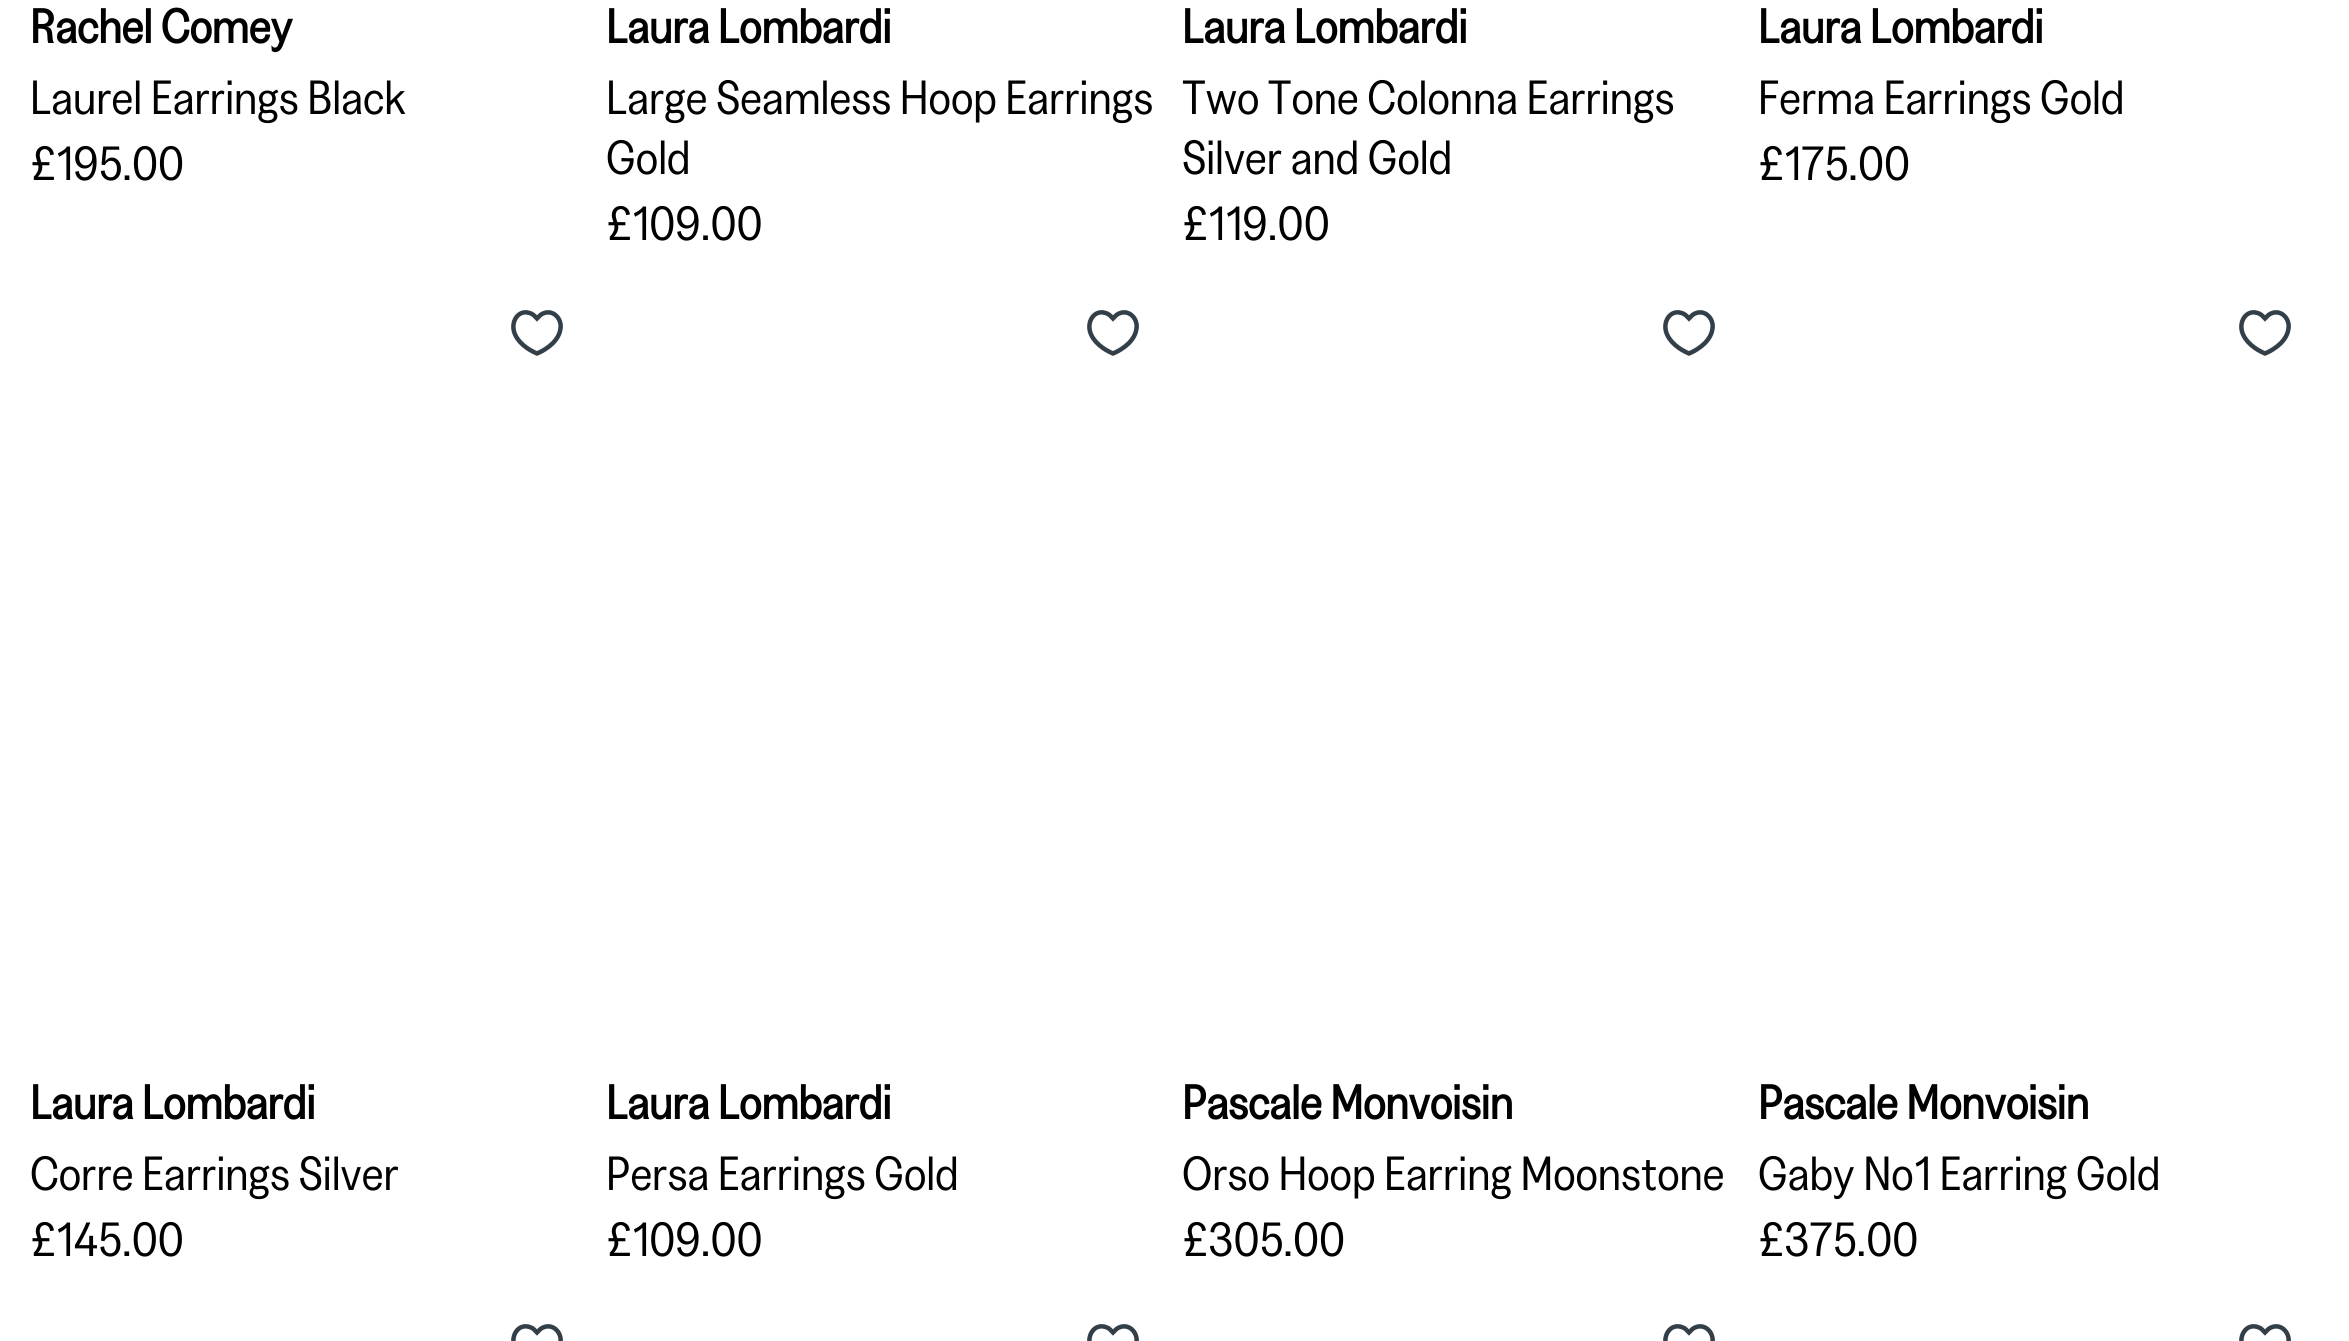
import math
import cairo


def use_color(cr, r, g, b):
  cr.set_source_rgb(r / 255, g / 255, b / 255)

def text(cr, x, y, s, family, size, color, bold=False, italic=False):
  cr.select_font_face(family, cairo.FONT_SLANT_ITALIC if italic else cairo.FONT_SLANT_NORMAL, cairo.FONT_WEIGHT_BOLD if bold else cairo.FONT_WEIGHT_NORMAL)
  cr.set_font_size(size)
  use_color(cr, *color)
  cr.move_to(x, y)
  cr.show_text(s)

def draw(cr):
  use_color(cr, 255, 255, 255)
  cr.paint()
  cr.new_path()
  cr.move_to(537, 353.5)
  cr.curve_to(527.5, 349.5, 517, 342, 514, 331.5)
  cr.curve_to(511, 320.5, 519, 308.5, 531, 313.5)
  cr.curve_to(533.5, 314.5, 535, 316.5, 537, 318.5)
  cr.curve_to(539, 316.5, 540.5, 314.5, 543, 313.5)
  cr.curve_to(553, 309, 562, 318.5, 560.5, 328.5)
  cr.curve_to(559, 340.5, 547.5, 349, 537, 353.5)
  cr.close_path()
  use_color(cr, 51, 63, 72)
  cr.set_line_width(4.5)
  cr.stroke()
  cr.new_path()
  cr.move_to(1113, 353.5)
  cr.curve_to(1103.5, 349.5, 1093, 342, 1090, 331.5)
  cr.curve_to(1087, 320.5, 1095, 308.5, 1107, 313.5)
  cr.curve_to(1109.5, 314.5, 1111, 316.5, 1113, 318.5)
  cr.curve_to(1115, 316.5, 1116.5, 314.5, 1119, 313.5)
  cr.curve_to(1129, 309, 1138, 318.5, 1136.5, 328.5)
  cr.curve_to(1135, 340.5, 1123.5, 349, 1113, 353.5)
  cr.close_path()
  cr.stroke()
  cr.new_path()
  cr.move_to(1689, 353.5)
  cr.curve_to(1679.5, 349.5, 1669, 342, 1666, 331.5)
  cr.curve_to(1663, 320.5, 1671, 308.5, 1683, 313.5)
  cr.curve_to(1685.5, 314.5, 1687, 316.5, 1689, 318.5)
  cr.curve_to(1691, 316.5, 1692.5, 314.5, 1695, 313.5)
  cr.curve_to(1705, 309, 1714, 318.5, 1712.5, 328.5)
  cr.curve_to(1711, 340.5, 1699.5, 349, 1689, 353.5)
  cr.close_path()
  cr.stroke()
  cr.new_path()
  cr.move_to(2265, 353.5)
  cr.curve_to(2255.5, 349.5, 2245, 342, 2242, 331.5)
  cr.curve_to(2239, 320.5, 2247, 308.5, 2259, 313.5)
  cr.curve_to(2261.5, 314.5, 2263, 316.5, 2265, 318.5)
  cr.curve_to(2267, 316.5, 2268.5, 314.5, 2271, 313.5)
  cr.curve_to(2281, 309, 2290, 318.5, 2288.5, 328.5)
  cr.curve_to(2287, 340.5, 2275.5, 349, 2265, 353.5)
  cr.close_path()
  cr.stroke()
  cr.new_path()
  cr.move_to(537, 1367.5)
  cr.curve_to(527.5, 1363.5, 517, 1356, 514, 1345.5)
  cr.curve_to(511, 1334.5, 519, 1322.5, 531, 1327.5)
  cr.curve_to(533.5, 1328.5, 535, 1330.5, 537, 1332.5)
  cr.curve_to(539, 1330.5, 540.5, 1328.5, 543, 1327.5)
  cr.curve_to(553, 1323, 562, 1332.5, 560.5, 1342.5)
  cr.curve_to(559, 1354.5, 547.5, 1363, 537, 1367.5)
  cr.close_path()
  cr.stroke()
  cr.new_path()
  cr.move_to(1113, 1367.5)
  cr.curve_to(1103.5, 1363.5, 1093, 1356, 1090, 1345.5)
  cr.curve_to(1087, 1334.5, 1095, 1322.5, 1107, 1327.5)
  cr.curve_to(1109.5, 1328.5, 1111, 1330.5, 1113, 1332.5)
  cr.curve_to(1115, 1330.5, 1116.5, 1328.5, 1119, 1327.5)
  cr.curve_to(1129, 1323, 1138, 1332.5, 1136.5, 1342.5)
  cr.curve_to(1135, 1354.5, 1123.5, 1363, 1113, 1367.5)
  cr.close_path()
  cr.stroke()
  cr.new_path()
  cr.move_to(1689, 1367.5)
  cr.curve_to(1679.5, 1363.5, 1669, 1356, 1666, 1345.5)
  cr.curve_to(1663, 1334.5, 1671, 1322.5, 1683, 1327.5)
  cr.curve_to(1685.5, 1328.5, 1687, 1330.5, 1689, 1332.5)
  cr.curve_to(1691, 1330.5, 1692.5, 1328.5, 1695, 1327.5)
  cr.curve_to(1705, 1323, 1714, 1332.5, 1712.5, 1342.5)
  cr.curve_to(1711, 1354.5, 1699.5, 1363, 1689, 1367.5)
  cr.close_path()
  cr.stroke()
  cr.new_path()
  cr.move_to(2265, 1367.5)
  cr.curve_to(2255.5, 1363.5, 2245, 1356, 2242, 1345.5)
  cr.curve_to(2239, 1334.5, 2247, 1322.5, 2259, 1327.5)
  cr.curve_to(2261.5, 1328.5, 2263, 1330.5, 2265, 1332.5)
  cr.curve_to(2267, 1330.5, 2268.5, 1328.5, 2271, 1327.5)
  cr.curve_to(2281, 1323, 2290, 1332.5, 2288.5, 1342.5)
  cr.curve_to(2287, 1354.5, 2275.5, 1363, 2265, 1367.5)
  cr.close_path()
  cr.stroke()
  text(cr, 30, 43, "Rachel Comey", "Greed", 48, (0, 0, 0), bold=True)
  text(cr, 30, 114, "Laurel Earrings Black", "Greed", 48, (0, 0, 0))
  text(cr, 30, 180, "£195.00", "Greed", 48, (0, 0, 0))
  text(cr, 606, 43, "Laura Lombardi", "Greed", 48, (0, 0, 0), bold=True)
  text(cr, 606, 114, "Large Seamless Hoop Earrings", "Greed", 48, (0, 0, 0))
  text(cr, 606, 174, "Gold", "Greed", 48, (0, 0, 0))
  text(cr, 606, 240, "£109.00", "Greed", 48, (0, 0, 0))
  text(cr, 1182, 43, "Laura Lombardi", "Greed", 48, (0, 0, 0), bold=True)
  text(cr, 1182, 114, "Two Tone Colonna Earrings", "Greed", 48, (0, 0, 0))
  text(cr, 1182, 174, "Silver and Gold", "Greed", 48, (0, 0, 0))
  text(cr, 1182, 240, "£119.00", "Greed", 48, (0, 0, 0))
  text(cr, 1758, 43, "Laura Lombardi", "Greed", 48, (0, 0, 0), bold=True)
  text(cr, 1758, 114, "Ferma Earrings Gold", "Greed", 48, (0, 0, 0))
  text(cr, 1758, 180, "£175.00", "Greed", 48, (0, 0, 0))
  text(cr, 30, 1119, "Laura Lombardi", "Greed", 48, (0, 0, 0), bold=True)
  text(cr, 30, 1190, "Corre Earrings Silver", "Greed", 48, (0, 0, 0))
  text(cr, 30, 1256, "£145.00", "Greed", 48, (0, 0, 0))
  text(cr, 606, 1119, "Laura Lombardi", "Greed", 48, (0, 0, 0), bold=True)
  text(cr, 606, 1190, "Persa Earrings Gold", "Greed", 48, (0, 0, 0))
  text(cr, 606, 1256, "£109.00", "Greed", 48, (0, 0, 0))
  text(cr, 1182, 1119, "Pascale Monvoisin", "Greed", 48, (0, 0, 0), bold=True)
  text(cr, 1182, 1190, "Orso Hoop Earring Moonstone", "Greed", 48, (0, 0, 0))
  text(cr, 1182, 1256, "£305.00", "Greed", 48, (0, 0, 0))
  text(cr, 1758, 1119, "Pascale Monvoisin", "Greed", 48, (0, 0, 0), bold=True)
  text(cr, 1758, 1190, "Gaby No1 Earring Gold", "Greed", 48, (0, 0, 0))
  text(cr, 1758, 1256, "£375.00", "Greed", 48, (0, 0, 0))


surface = cairo.ImageSurface(cairo.FORMAT_RGB24, 2349, 1341)
cr = cairo.Context(surface)
options = cairo.FontOptions()
options.set_hint_metrics(cairo.HINT_METRICS_OFF)
options.set_hint_style(cairo.HINT_STYLE_NONE)
cr.set_font_options(options)
cr.set_miter_limit(4)
draw(cr)
surface.write_to_png("out.png")
